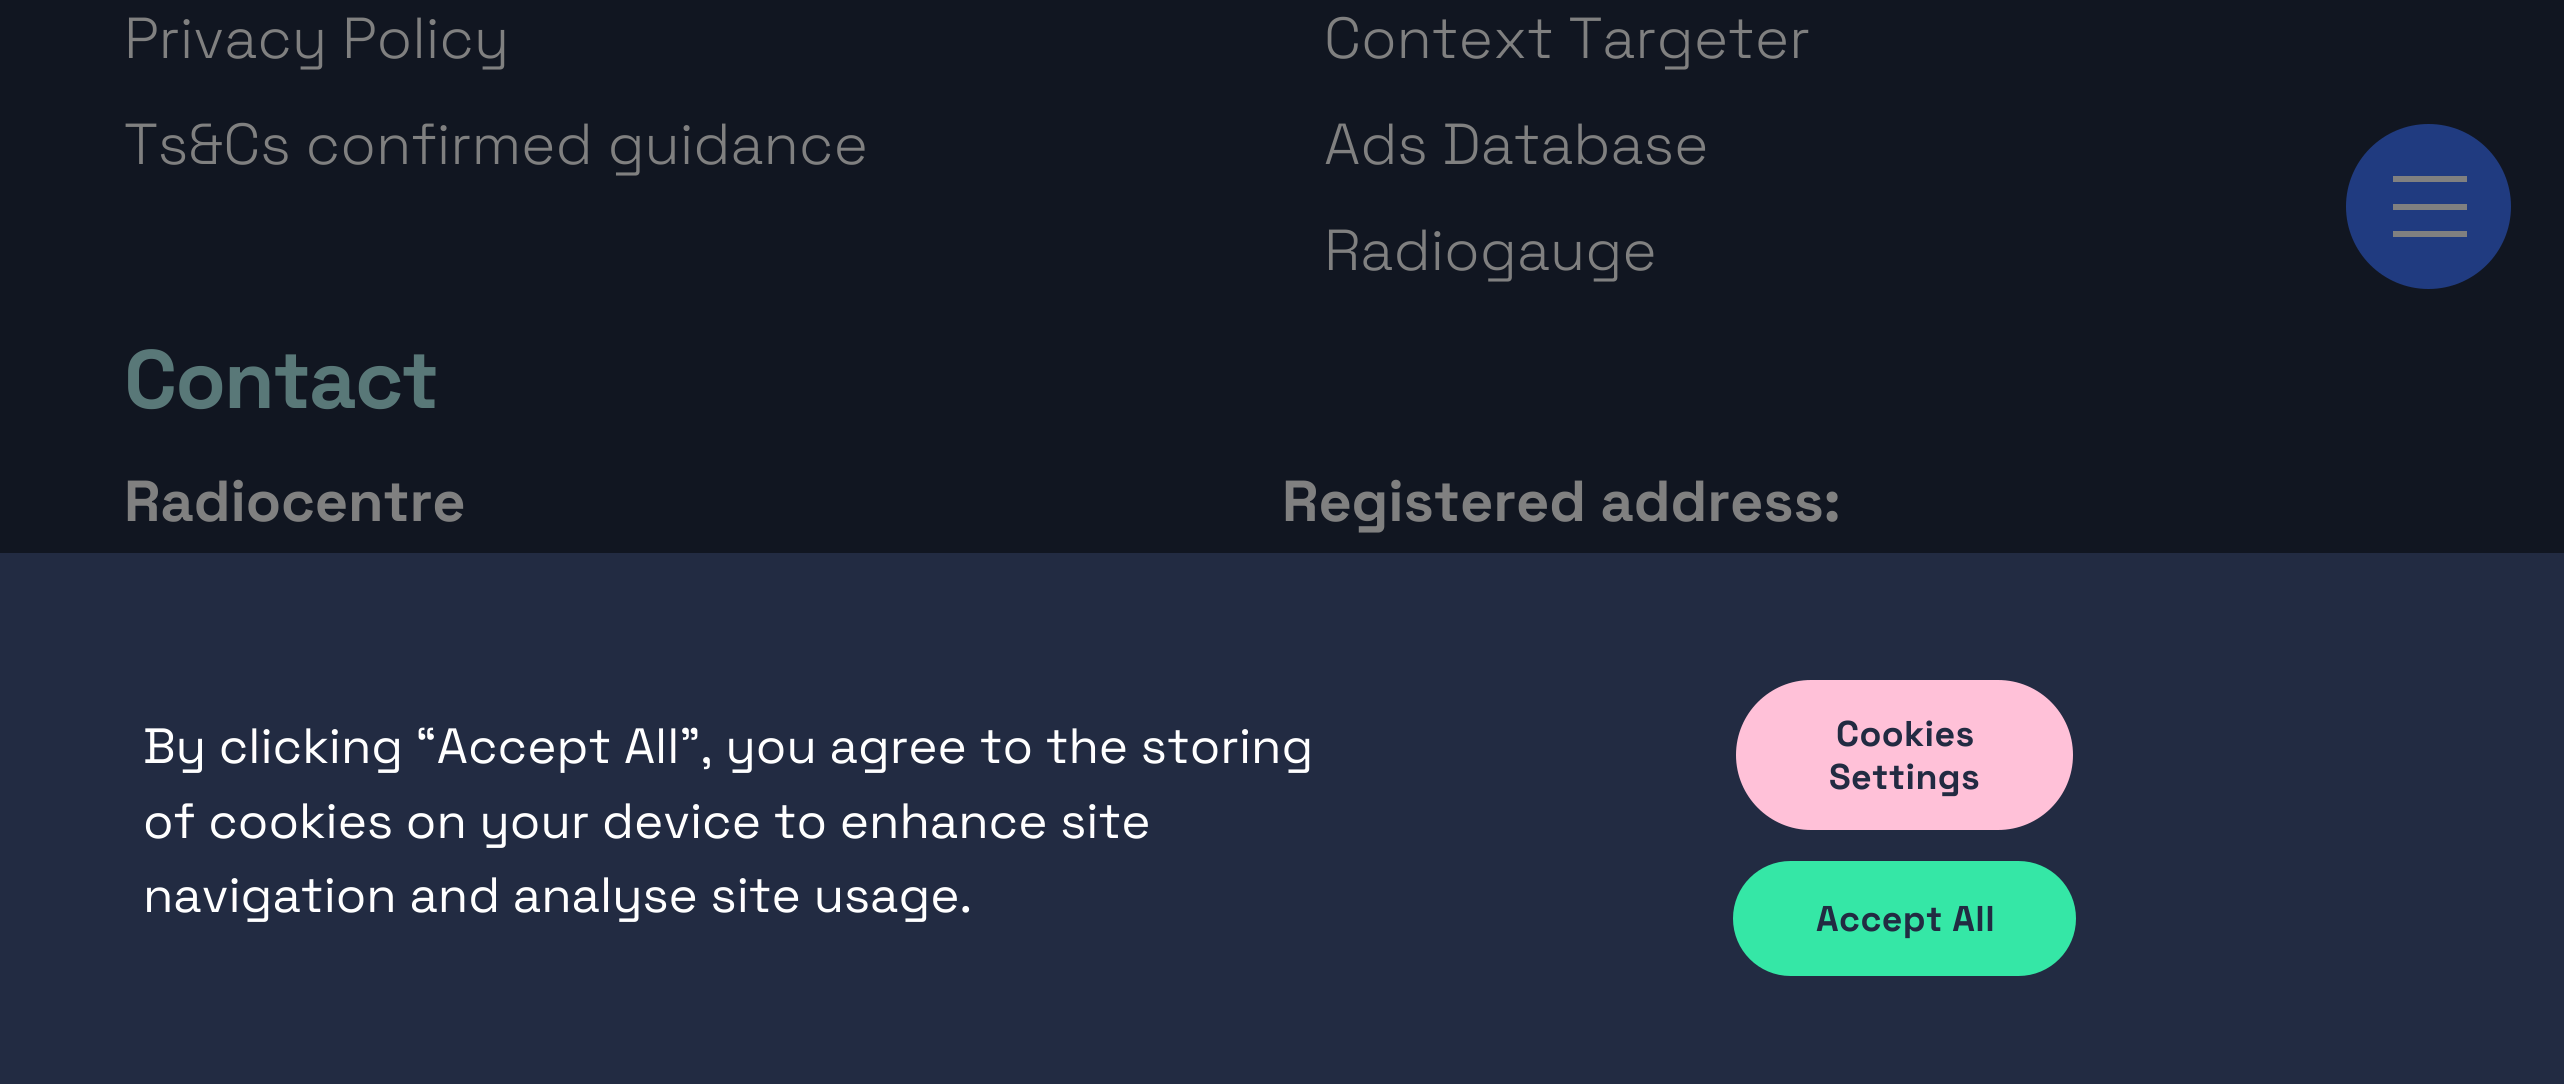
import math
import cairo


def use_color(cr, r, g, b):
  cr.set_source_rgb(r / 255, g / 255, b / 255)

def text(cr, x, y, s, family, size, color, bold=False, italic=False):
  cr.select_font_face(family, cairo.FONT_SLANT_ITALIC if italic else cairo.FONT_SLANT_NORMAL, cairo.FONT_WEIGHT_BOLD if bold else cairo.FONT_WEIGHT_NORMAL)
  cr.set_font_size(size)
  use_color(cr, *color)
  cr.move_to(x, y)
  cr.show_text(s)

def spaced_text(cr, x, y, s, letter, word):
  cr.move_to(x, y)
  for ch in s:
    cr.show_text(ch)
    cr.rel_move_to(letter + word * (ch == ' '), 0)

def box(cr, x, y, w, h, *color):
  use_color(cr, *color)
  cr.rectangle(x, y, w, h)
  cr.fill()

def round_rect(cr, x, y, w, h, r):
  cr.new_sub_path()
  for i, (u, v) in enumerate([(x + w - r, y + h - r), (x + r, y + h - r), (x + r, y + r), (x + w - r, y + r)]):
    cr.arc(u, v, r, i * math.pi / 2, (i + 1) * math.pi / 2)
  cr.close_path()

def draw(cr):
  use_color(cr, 17, 22, 33)
  cr.paint()
  use_color(cr, 32, 59, 128)
  cr.arc(2428.5, 206.5, 82.5, 0, 2 * math.pi)
  cr.fill()
  box(cr, 2393, 176, 74, 6, 128, 128, 128)
  box(cr, 2393, 204, 74, 6, 128, 128, 128)
  box(cr, 2393, 231, 74, 6, 128, 128, 128)
  box(cr, 0, 553, 2564, 531, 34, 43, 66)
  use_color(cr, 255, 193, 216)
  round_rect(cr, 1734.5, 678.5, 340, 153, 76.5)
  cr.fill_preserve()
  use_color(cr, 34, 43, 66)
  cr.set_line_width(3)
  cr.stroke()
  use_color(cr, 53, 231, 166)
  round_rect(cr, 1734.5, 862.5, 340, 112, 56)
  cr.fill_preserve()
  cr.stroke()
  cr.select_font_face("Space Grotesk Light")
  cr.set_font_size(57.75)
  use_color(cr, 128, 128, 128)
  spaced_text(cr, 124, 58, "Privacy Policy", -0.1, 0)
  spaced_text(cr, 124, 164, "Ts&Cs confirmed guidance", -0.1, 0)
  spaced_text(cr, 1324, 58, "Context Targeter", -0.1, 0)
  spaced_text(cr, 1324, 164, "Ads Database", -0.1, 0)
  spaced_text(cr, 1324, 270, "Radiogauge", -0.1, 0)
  cr.select_font_face("Space Grotesk", cairo.FONT_SLANT_NORMAL, cairo.FONT_WEIGHT_BOLD)
  cr.set_font_size(82.5)
  use_color(cr, 89, 120, 120)
  spaced_text(cr, 124, 408, "Contact", -1.75, 0)
  cr.set_font_size(57.75)
  use_color(cr, 128, 128, 128)
  spaced_text(cr, 124, 521, "Radiocentre", -0.1, 0)
  spaced_text(cr, 1282, 521, "Registered address:", -0.1, 0)
  text(cr, 143, 763, "By clicking “Accept All”, you agree to the storing", "Space Grotesk", 49.5, (255, 255, 255))
  text(cr, 143, 838, "of cookies on your device to enhance site", "Space Grotesk", 49.5, (255, 255, 255))
  text(cr, 143, 912, "navigation and analyse site usage.", "Space Grotesk", 49.5, (255, 255, 255))
  cr.select_font_face("Space Grotesk", cairo.FONT_SLANT_NORMAL, cairo.FONT_WEIGHT_BOLD)
  cr.set_font_size(35.75)
  use_color(cr, 34, 43, 66)
  spaced_text(cr, 1836, 746, "Cookies", 0.4, 0)
  spaced_text(cr, 1829, 789, "Settings", 0.4, 0)
  spaced_text(cr, 1816, 931, "Accept All", 0.4, 0)


surface = cairo.ImageSurface(cairo.FORMAT_RGB24, 2564, 1084)
cr = cairo.Context(surface)
options = cairo.FontOptions()
options.set_hint_metrics(cairo.HINT_METRICS_OFF)
options.set_hint_style(cairo.HINT_STYLE_NONE)
cr.set_font_options(options)
cr.set_miter_limit(4)
draw(cr)
surface.write_to_png("out.png")
